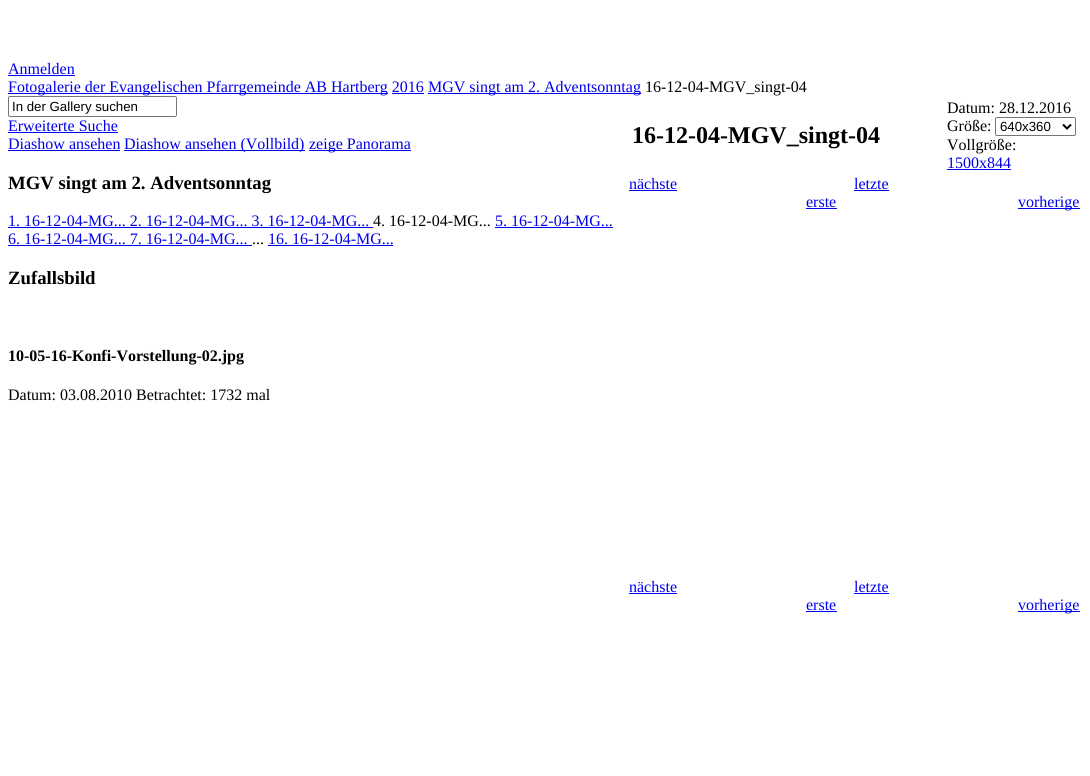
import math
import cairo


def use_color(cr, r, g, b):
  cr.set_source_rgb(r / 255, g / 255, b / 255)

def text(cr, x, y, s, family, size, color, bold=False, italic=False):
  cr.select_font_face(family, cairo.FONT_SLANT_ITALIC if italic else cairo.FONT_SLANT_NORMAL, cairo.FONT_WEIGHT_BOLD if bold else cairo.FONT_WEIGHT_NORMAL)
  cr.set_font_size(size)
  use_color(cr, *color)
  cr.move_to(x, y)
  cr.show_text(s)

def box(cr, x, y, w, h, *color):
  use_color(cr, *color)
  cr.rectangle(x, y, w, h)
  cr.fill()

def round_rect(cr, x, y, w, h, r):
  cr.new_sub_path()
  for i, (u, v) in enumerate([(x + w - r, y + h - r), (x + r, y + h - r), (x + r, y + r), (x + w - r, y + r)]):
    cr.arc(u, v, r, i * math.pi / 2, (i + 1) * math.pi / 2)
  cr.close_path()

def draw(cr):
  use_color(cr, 255, 255, 255)
  cr.paint()
  box(cr, 8, 75, 67, 1, 0, 0, 238)
  box(cr, 8, 93, 380, 1, 0, 0, 238)
  box(cr, 428, 93, 213, 1, 0, 0, 238)
  box(cr, 392, 93, 32, 1, 0, 0, 238)
  round_rect(cr, 8.5, 96.5, 168, 20, 1.5)
  use_color(cr, 118, 118, 118)
  cr.set_line_width(1)
  cr.stroke()
  box(cr, 8, 132, 110, 1, 0, 0, 238)
  box(cr, 8, 150, 112, 1, 0, 0, 238)
  box(cr, 124, 150, 181, 1, 0, 0, 238)
  box(cr, 309, 150, 102, 1, 0, 0, 238)
  box(cr, 8, 227, 365, 1, 0, 0, 238)
  box(cr, 495, 227, 118, 1, 0, 0, 238)
  box(cr, 8, 245, 244, 1, 0, 0, 238)
  box(cr, 268, 245, 125, 1, 0, 0, 238)
  round_rect(cr, 995.5, 117.5, 80, 18, 1.5)
  use_color(cr, 118, 118, 118)
  cr.stroke()
  cr.new_path()
  cr.move_to(1063, 124.5)
  cr.line_to(1067, 128.5)
  cr.line_to(1071, 124.5)
  use_color(cr, 0, 0, 0)
  cr.set_line_width(2)
  cr.stroke()
  box(cr, 947, 169, 64, 1, 0, 0, 238)
  box(cr, 629, 190, 48, 1, 0, 0, 238)
  box(cr, 854, 190, 35, 1, 0, 0, 238)
  box(cr, 806, 208, 31, 1, 0, 0, 238)
  box(cr, 1018, 208, 62, 1, 0, 0, 238)
  box(cr, 629, 593, 48, 1, 0, 0, 238)
  box(cr, 854, 593, 35, 1, 0, 0, 238)
  box(cr, 806, 611, 31, 1, 0, 0, 238)
  box(cr, 1018, 611, 62, 1, 0, 0, 238)
  text(cr, 8, 74, "Anmelden", "Liberation Serif", 16, (0, 0, 238))
  text(cr, 8, 92, "Fotogalerie der Evangelischen Pfarrgemeinde AB Hartberg 2016", "Liberation Serif", 16, (0, 0, 238))
  text(cr, 428, 92, "MGV singt am 2. Adventsonntag", "Liberation Serif", 16, (0, 0, 238))
  text(cr, 645, 92, "16-12-04-MGV_singt-04", "Liberation Serif", 16, (0, 0, 0))
  text(cr, 12, 111, "In der Gallery suchen", "Liberation Sans", 13.25, (0, 0, 0))
  text(cr, 8, 131, "Erweiterte Suche", "Liberation Serif", 16, (0, 0, 238))
  text(cr, 8, 149, "Diashow ansehen", "Liberation Serif", 16, (0, 0, 238))
  text(cr, 124, 149, "Diashow ansehen (Vollbild)", "Liberation Serif", 16, (0, 0, 238))
  text(cr, 309, 149, "zeige Panorama", "Liberation Serif", 16, (0, 0, 238))
  text(cr, 8, 189, "MGV singt am 2. Adventsonntag", "Liberation Serif", 18.75, (0, 0, 0), bold=True)
  text(cr, 8, 226, "1. 16-12-04-MG... 2. 16-12-04-MG... 3. 16-12-04-MG...", "Liberation Serif", 16, (0, 0, 238))
  text(cr, 373, 226, "4. 16-12-04-MG...", "Liberation Serif", 16, (0, 0, 0))
  text(cr, 495, 226, "5. 16-12-04-MG...", "Liberation Serif", 16, (0, 0, 238))
  text(cr, 8, 244, "6. 16-12-04-MG... 7. 16-12-04-MG...", "Liberation Serif", 16, (0, 0, 238))
  text(cr, 252, 244, "...", "Liberation Serif", 16, (0, 0, 0))
  text(cr, 268, 244, "16. 16-12-04-MG...", "Liberation Serif", 16, (0, 0, 238))
  text(cr, 8, 284, "Zufallsbild", "Liberation Serif", 18.75, (0, 0, 0), bold=True)
  text(cr, 8, 361, "10-05-16-Konfi-Vorstellung-02.jpg", "Liberation Serif", 16, (0, 0, 0), bold=True)
  text(cr, 8, 400, "Datum: 03.08.2010 Betrachtet: 1732 mal", "Liberation Serif", 16, (0, 0, 0))
  text(cr, 632, 143, "16-12-04-MGV_singt-04", "Liberation Serif", 24, (0, 0, 0), bold=True)
  text(cr, 947, 113, "Datum: 28.12.2016", "Liberation Serif", 16, (0, 0, 0))
  text(cr, 947, 131, "Größe:", "Liberation Serif", 16, (0, 0, 0))
  text(cr, 1000, 131, "640x360", "Liberation Sans", 13.25, (0, 0, 0))
  text(cr, 947, 150, "Vollgröße:", "Liberation Serif", 16, (0, 0, 0))
  text(cr, 947, 168, "1500x844", "Liberation Serif", 16, (0, 0, 238))
  text(cr, 629, 189, "nächste", "Liberation Serif", 16, (0, 0, 238))
  text(cr, 854, 189, "letzte", "Liberation Serif", 16, (0, 0, 238))
  text(cr, 806, 207, "erste", "Liberation Serif", 16, (0, 0, 238))
  text(cr, 1018, 207, "vorherige", "Liberation Serif", 16, (0, 0, 238))
  text(cr, 629, 592, "nächste", "Liberation Serif", 16, (0, 0, 238))
  text(cr, 854, 592, "letzte", "Liberation Serif", 16, (0, 0, 238))
  text(cr, 806, 610, "erste", "Liberation Serif", 16, (0, 0, 238))
  text(cr, 1018, 610, "vorherige", "Liberation Serif", 16, (0, 0, 238))


surface = cairo.ImageSurface(cairo.FORMAT_RGB24, 1090, 776)
cr = cairo.Context(surface)
options = cairo.FontOptions()
options.set_hint_metrics(cairo.HINT_METRICS_OFF)
options.set_hint_style(cairo.HINT_STYLE_NONE)
cr.set_font_options(options)
cr.set_miter_limit(4)
draw(cr)
surface.write_to_png("out.png")
